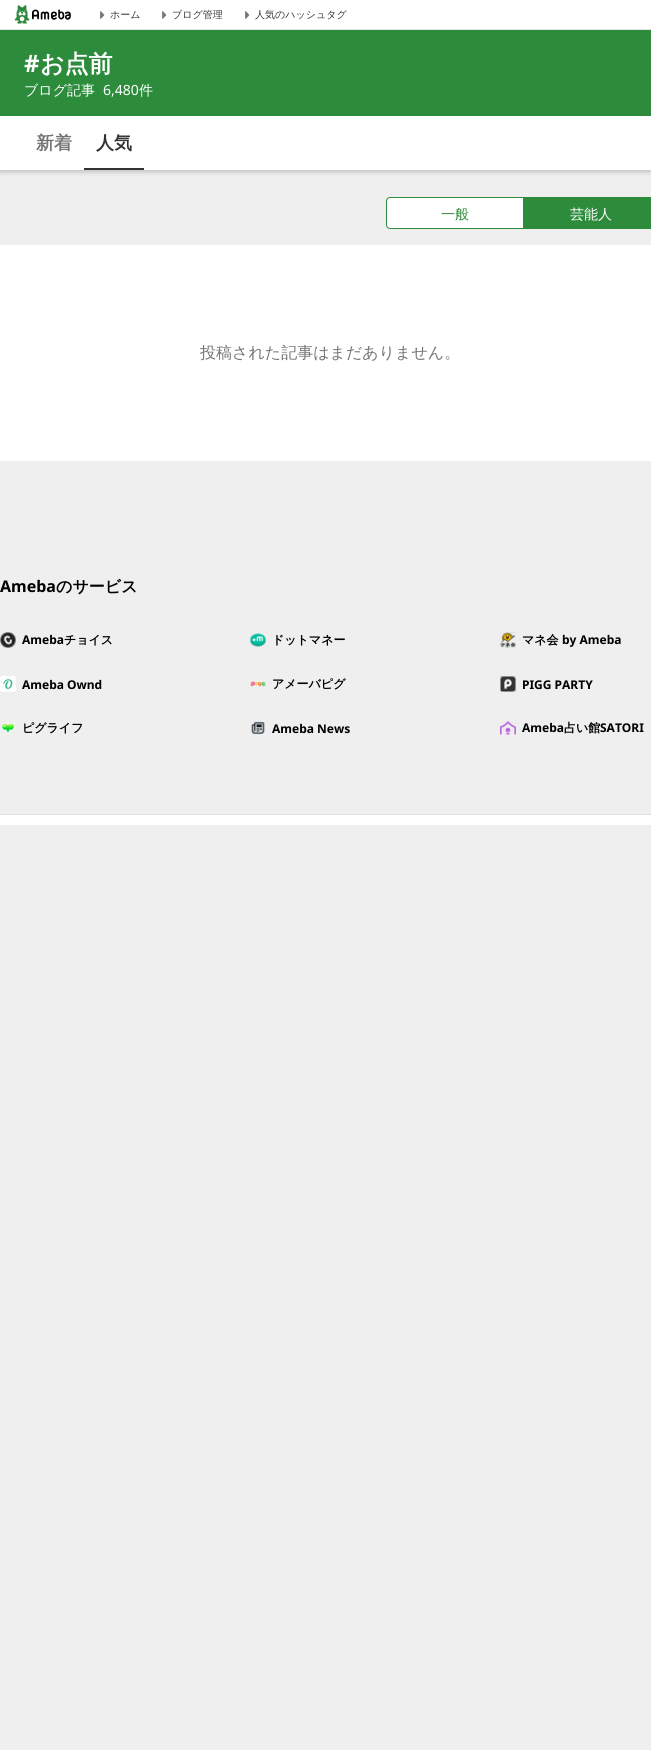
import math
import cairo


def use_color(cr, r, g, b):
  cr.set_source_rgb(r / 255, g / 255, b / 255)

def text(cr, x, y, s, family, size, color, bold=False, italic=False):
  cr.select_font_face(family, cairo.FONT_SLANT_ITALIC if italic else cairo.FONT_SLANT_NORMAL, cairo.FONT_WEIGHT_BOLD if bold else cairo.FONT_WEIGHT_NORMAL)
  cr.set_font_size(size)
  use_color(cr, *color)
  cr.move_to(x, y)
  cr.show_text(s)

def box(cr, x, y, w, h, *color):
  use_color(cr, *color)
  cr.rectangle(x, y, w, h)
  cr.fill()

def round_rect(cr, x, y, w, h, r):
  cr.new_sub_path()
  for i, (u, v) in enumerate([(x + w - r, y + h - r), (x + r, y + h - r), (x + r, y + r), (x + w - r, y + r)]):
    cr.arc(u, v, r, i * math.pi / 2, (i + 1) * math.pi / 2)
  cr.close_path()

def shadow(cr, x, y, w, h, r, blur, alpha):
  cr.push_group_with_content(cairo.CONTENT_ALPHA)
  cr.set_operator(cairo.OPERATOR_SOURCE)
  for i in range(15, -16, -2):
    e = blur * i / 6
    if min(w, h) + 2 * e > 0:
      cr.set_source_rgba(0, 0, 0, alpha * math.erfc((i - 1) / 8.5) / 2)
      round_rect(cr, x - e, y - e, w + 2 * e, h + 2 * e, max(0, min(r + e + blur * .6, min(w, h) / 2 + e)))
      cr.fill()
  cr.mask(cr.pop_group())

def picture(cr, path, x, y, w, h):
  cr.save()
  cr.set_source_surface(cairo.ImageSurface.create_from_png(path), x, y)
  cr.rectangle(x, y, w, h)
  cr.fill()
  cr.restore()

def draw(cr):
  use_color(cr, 239, 239, 239)
  cr.paint()
  box(cr, 0, 0, 651, 29, 255, 255, 255)
  box(cr, 0, 29, 651, 1, 226, 226, 226)
  picture(cr, "img_01.png", 14, 5, 57, 19)
  picture(cr, "img_02.png", 100, 11, 5, 8)
  picture(cr, "img_02.png", 162, 11, 5, 8)
  picture(cr, "img_02.png", 245, 11, 5, 8)
  box(cr, 0, 30, 651, 86, 45, 140, 60)
  use_color(cr, 0, 0, 0)
  shadow(cr, 0, 118, 651, 54, 0, 2.5, 0.2)
  box(cr, 0, 116, 651, 54, 255, 255, 255)
  box(cr, 84, 168, 60, 2, 51, 51, 51)
  round_rect(cr, 386.5, 197.5, 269, 31, 3.5)
  use_color(cr, 45, 140, 60)
  cr.set_line_width(1)
  cr.stroke()
  use_color(cr, 255, 255, 255)
  cr.new_path()
  cr.move_to(391, 198)
  cr.line_to(523, 198)
  cr.line_to(523, 228)
  cr.line_to(391, 228)
  cr.curve_to(389, 228, 387, 226, 387, 224)
  cr.line_to(387, 202)
  cr.curve_to(387, 200, 389, 198, 391, 198)
  cr.close_path()
  cr.fill()
  box(cr, 523, 198, 128, 30, 45, 140, 60)
  box(cr, 0, 245, 651, 216, 255, 255, 255)
  picture(cr, "img_03.png", 0, 632, 16, 16)
  picture(cr, "img_04.png", 250, 633, 16, 14)
  picture(cr, "img_05.png", 500, 632, 16, 16)
  picture(cr, "img_06.png", 0, 676, 16, 16)
  picture(cr, "img_07.png", 250, 681, 16, 6)
  picture(cr, "img_08.png", 500, 676, 16, 16)
  picture(cr, "img_09.png", 1, 722, 14, 11)
  picture(cr, "img_10.png", 251, 721, 14, 14)
  picture(cr, "img_11.png", 500, 721, 16, 14)
  box(cr, 0, 815, 651, 10, 255, 255, 255)
  box(cr, 0, 814, 651, 1, 224, 224, 224)
  text(cr, 110, 18, "ホーム", "WenQuanYi Zen Hei Medium", 10, (51, 51, 51))
  text(cr, 172, 18, "ブログ管理", "WenQuanYi Zen Hei Medium", 10, (51, 51, 51))
  text(cr, 255, 18, "人気のハッシュタグ", "WenQuanYi Zen Hei Medium", 10, (51, 51, 51))
  text(cr, 24, 72, "#", "Noto Sans", 24, (255, 255, 255), bold=True)
  text(cr, 40, 72, "お点前", "WenQuanYi Zen Hei", 24, (255, 255, 255), bold=True)
  text(cr, 24, 95, "ブログ記事", "WenQuanYi Zen Hei Medium", 14, (255, 255, 255))
  text(cr, 103, 95, "6,480", "Noto Sans", 14, (255, 255, 255))
  text(cr, 139, 95, "件", "WenQuanYi Zen Hei Medium", 14, (255, 255, 255))
  text(cr, 36, 149, "新着", "WenQuanYi Zen Hei", 18, (117, 117, 117), bold=True)
  text(cr, 96, 149, "人気", "WenQuanYi Zen Hei", 18, (51, 51, 51), bold=True)
  text(cr, 441, 219, "一般", "WenQuanYi Zen Hei Medium", 14, (45, 140, 60))
  text(cr, 570, 219, "芸能人", "WenQuanYi Zen Hei Medium", 14, (255, 255, 255))
  text(cr, 200, 358, "投稿された記事はまだありません。", "WenQuanYi Zen Hei Medium", 16, (117, 117, 117))
  text(cr, 0, 592, "Ameba", "Noto Sans", 16, (0, 0, 0), bold=True)
  text(cr, 56, 592, "のサービス", "WenQuanYi Zen Hei", 16, (0, 0, 0), bold=True)
  text(cr, 22, 644, "Ameba", "Noto Sans", 12, (0, 0, 0), bold=True)
  text(cr, 64, 644, "チョイス", "WenQuanYi Zen Hei", 12, (0, 0, 0), bold=True)
  text(cr, 272, 644, "ドットマネー", "WenQuanYi Zen Hei", 12, (0, 0, 0), bold=True)
  text(cr, 522, 644, "マネ会", "WenQuanYi Zen Hei", 12, (0, 0, 0), bold=True)
  text(cr, 562, 644, "by Ameba", "Noto Sans", 12, (0, 0, 0), bold=True)
  text(cr, 22, 689, "Ameba Ownd", "Noto Sans", 12, (0, 0, 0), bold=True)
  text(cr, 272, 688, "アメーバピグ", "WenQuanYi Zen Hei", 12, (0, 0, 0), bold=True)
  text(cr, 522, 689, "PIGG PARTY", "Noto Sans", 12, (0, 0, 0), bold=True)
  text(cr, 22, 732, "ピグライフ", "WenQuanYi Zen Hei", 12, (0, 0, 0), bold=True)
  text(cr, 272, 733, "Ameba News", "Noto Sans", 12, (0, 0, 0), bold=True)
  text(cr, 522, 732, "Ameba", "Noto Sans", 12, (0, 0, 0), bold=True)
  text(cr, 564, 732, "占い館", "WenQuanYi Zen Hei", 12, (0, 0, 0), bold=True)
  text(cr, 600, 732, "SATORI", "Noto Sans", 12, (0, 0, 0), bold=True)


surface = cairo.ImageSurface(cairo.FORMAT_RGB24, 651, 1750)
cr = cairo.Context(surface)
options = cairo.FontOptions()
options.set_hint_metrics(cairo.HINT_METRICS_OFF)
options.set_hint_style(cairo.HINT_STYLE_NONE)
cr.set_font_options(options)
cr.set_miter_limit(4)
draw(cr)
surface.write_to_png("out.png")
